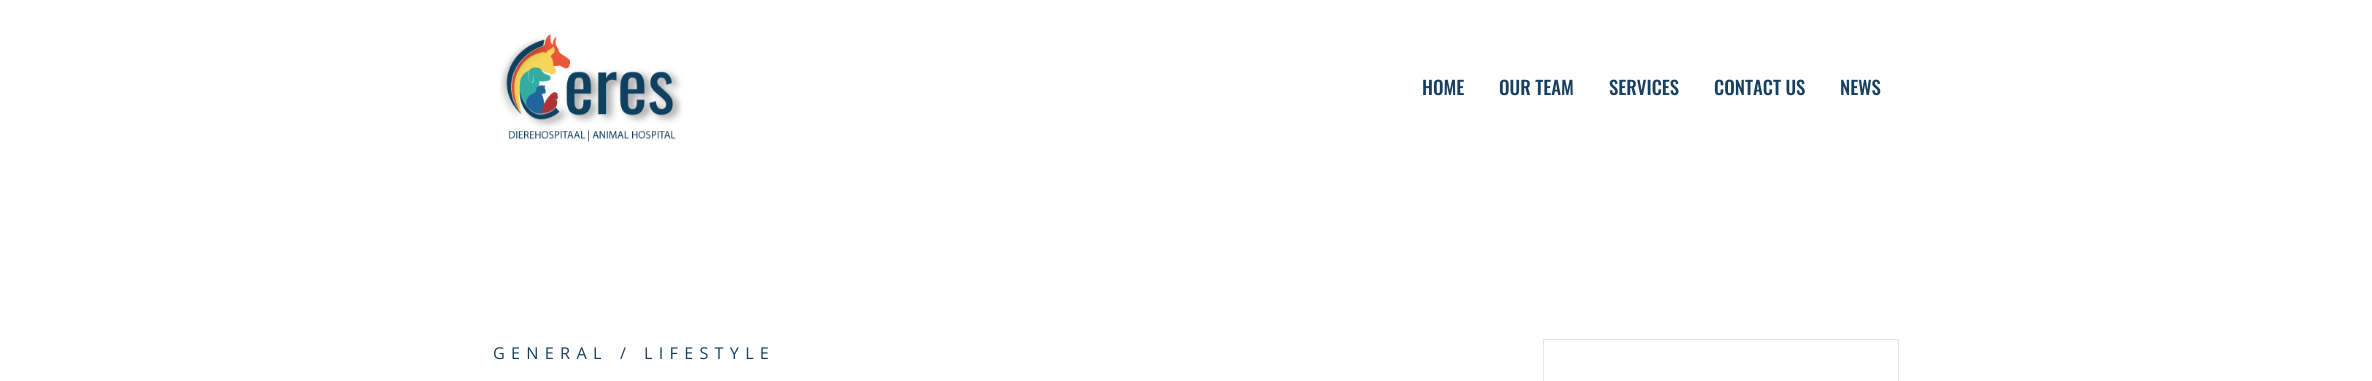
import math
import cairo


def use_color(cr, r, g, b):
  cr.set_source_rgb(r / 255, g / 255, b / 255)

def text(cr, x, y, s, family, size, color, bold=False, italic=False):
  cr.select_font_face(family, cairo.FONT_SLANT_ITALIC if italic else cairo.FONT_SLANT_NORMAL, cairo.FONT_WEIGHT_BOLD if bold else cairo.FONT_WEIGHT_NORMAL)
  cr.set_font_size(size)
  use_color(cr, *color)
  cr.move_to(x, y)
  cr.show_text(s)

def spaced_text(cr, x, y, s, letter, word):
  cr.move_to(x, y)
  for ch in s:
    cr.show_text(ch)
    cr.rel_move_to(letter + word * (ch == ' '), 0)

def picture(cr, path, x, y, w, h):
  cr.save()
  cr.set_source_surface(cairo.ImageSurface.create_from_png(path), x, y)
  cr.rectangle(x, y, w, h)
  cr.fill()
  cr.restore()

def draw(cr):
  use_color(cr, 255, 255, 255)
  cr.paint()
  picture(cr, "img_01.png", 499, 34, 184, 108)
  cr.rectangle(1543.5, 339.5, 355, 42)
  use_color(cr, 230, 230, 230)
  cr.set_line_width(1)
  cr.stroke()
  text(cr, 1422, 95, "HOME", "Oswald Medium", 18.75, (23, 63, 95))
  text(cr, 1499, 95, "OUR TEAM", "Oswald Medium", 18.75, (23, 63, 95))
  text(cr, 1609, 95, "SERVICES", "Oswald Medium", 18.75, (23, 63, 95))
  text(cr, 1714, 95, "CONTACT US", "Oswald Medium", 18.75, (23, 63, 95))
  text(cr, 1840, 95, "NEWS", "Oswald Medium", 18.75, (23, 63, 95))
  cr.select_font_face("Open Sans")
  cr.set_font_size(16.25)
  spaced_text(cr, 493, 359, "GENERAL", 6.25, 0)
  spaced_text(cr, 620, 359, "/", 6.25, 0)
  spaced_text(cr, 644, 359, "LIFESTYLE", 6.25, 0)


surface = cairo.ImageSurface(cairo.FORMAT_RGB24, 2372, 381)
cr = cairo.Context(surface)
options = cairo.FontOptions()
options.set_hint_metrics(cairo.HINT_METRICS_OFF)
options.set_hint_style(cairo.HINT_STYLE_NONE)
cr.set_font_options(options)
cr.set_miter_limit(4)
draw(cr)
surface.write_to_png("out.png")
